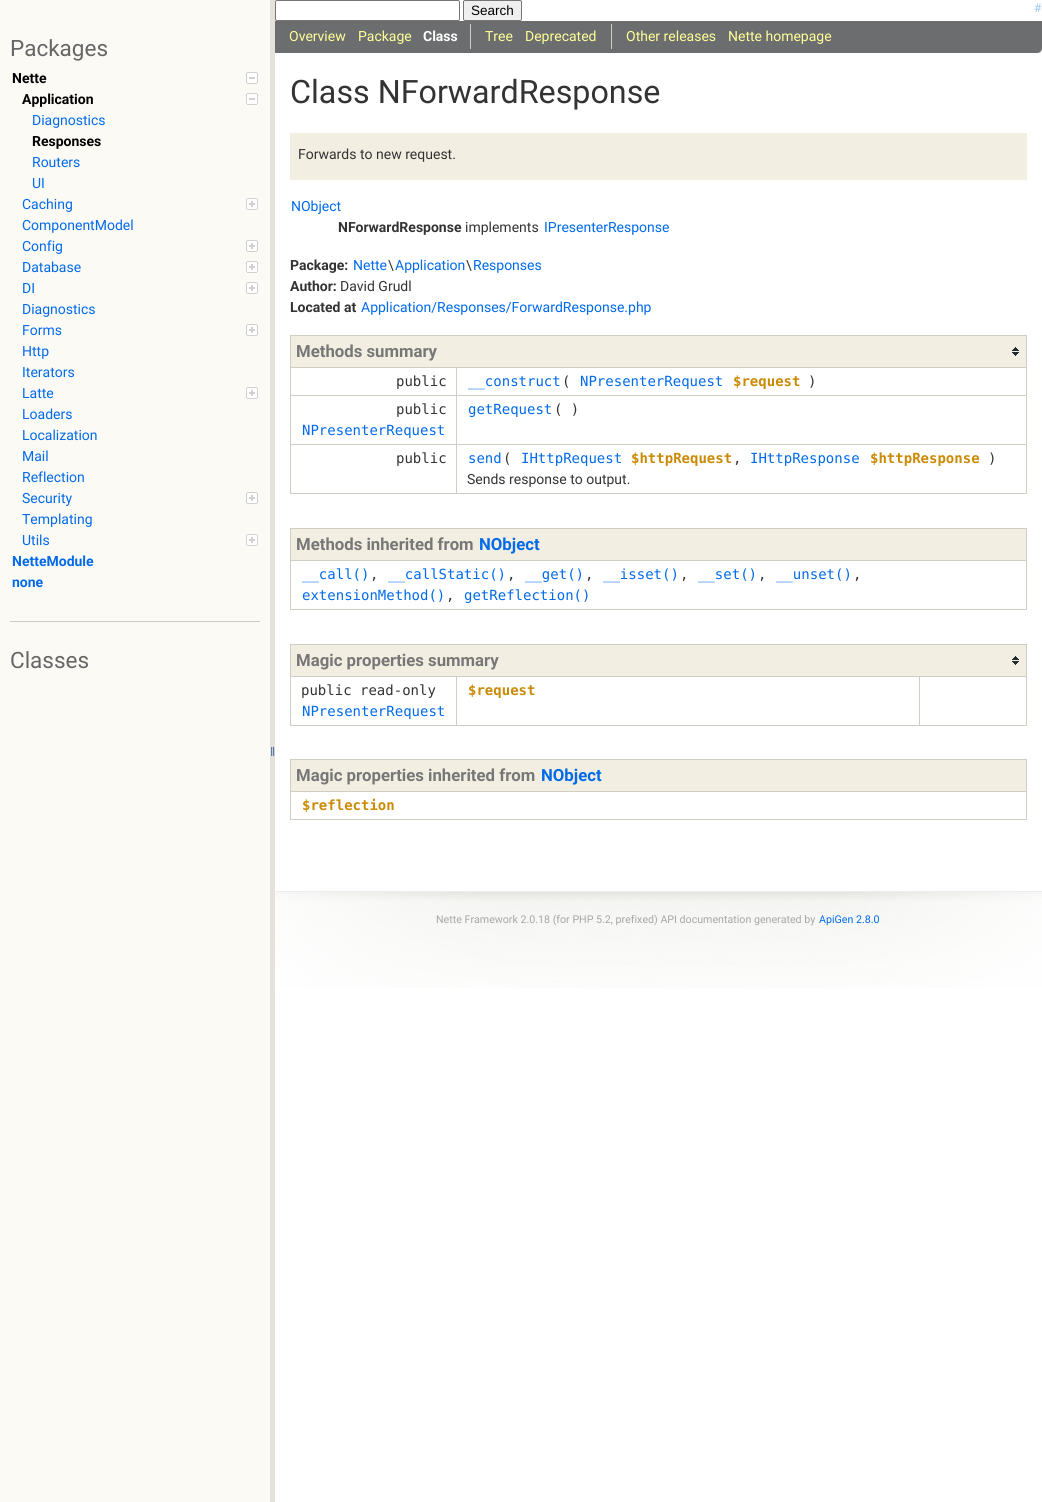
import math
import cairo


def use_color(cr, r, g, b):
  cr.set_source_rgb(r / 255, g / 255, b / 255)

def text(cr, x, y, s, family, size, color, bold=False, italic=False):
  cr.select_font_face(family, cairo.FONT_SLANT_ITALIC if italic else cairo.FONT_SLANT_NORMAL, cairo.FONT_WEIGHT_BOLD if bold else cairo.FONT_WEIGHT_NORMAL)
  cr.set_font_size(size)
  use_color(cr, *color)
  cr.move_to(x, y)
  cr.show_text(s)

def box(cr, x, y, w, h, *color):
  use_color(cr, *color)
  cr.rectangle(x, y, w, h)
  cr.fill()

def round_rect(cr, x, y, w, h, r):
  cr.new_sub_path()
  for i, (u, v) in enumerate([(x + w - r, y + h - r), (x + r, y + h - r), (x + r, y + r), (x + w - r, y + r)]):
    cr.arc(u, v, r, i * math.pi / 2, (i + 1) * math.pi / 2)
  cr.close_path()

def picture(cr, path, x, y, w, h):
  cr.save()
  cr.set_source_surface(cairo.ImageSurface.create_from_png(path), x, y)
  cr.rectangle(x, y, w, h)
  cr.fill()
  cr.restore()

def draw(cr):
  use_color(cr, 255, 255, 255)
  cr.paint()
  box(cr, 0, 0, 270, 1502, 252, 250, 245)
  picture(cr, "img_01.png", 246, 72, 12, 12)
  picture(cr, "img_01.png", 246, 93, 12, 12)
  picture(cr, "img_02.png", 246, 198, 12, 12)
  picture(cr, "img_02.png", 246, 240, 12, 12)
  picture(cr, "img_02.png", 246, 261, 12, 12)
  picture(cr, "img_02.png", 246, 282, 12, 12)
  picture(cr, "img_02.png", 246, 324, 12, 12)
  picture(cr, "img_02.png", 246, 387, 12, 12)
  picture(cr, "img_02.png", 246, 492, 12, 12)
  picture(cr, "img_02.png", 246, 534, 12, 12)
  box(cr, 10, 621, 250, 1, 208, 205, 196)
  box(cr, 270, 0, 5, 1502, 228, 226, 218)
  picture(cr, "img_03.png", 271, 747, 4, 9)
  box(cr, 290, 335, 737, 1, 208, 205, 196)
  box(cr, 1026, 335, 1, 159, 208, 205, 196)
  box(cr, 290, 493, 737, 1, 208, 205, 196)
  box(cr, 290, 335, 1, 159, 208, 205, 196)
  box(cr, 456, 367, 571, 1, 208, 205, 196)
  box(cr, 456, 395, 571, 1, 208, 205, 196)
  box(cr, 456, 444, 571, 1, 208, 205, 196)
  box(cr, 456, 444, 1, 50, 208, 205, 196)
  box(cr, 290, 444, 167, 1, 208, 205, 196)
  box(cr, 456, 395, 1, 50, 208, 205, 196)
  box(cr, 290, 395, 167, 1, 208, 205, 196)
  box(cr, 456, 367, 1, 29, 208, 205, 196)
  box(cr, 290, 367, 167, 1, 208, 205, 196)
  box(cr, 291, 336, 735, 31, 242, 238, 225)
  picture(cr, "img_04.png", 1012, 347, 7, 9)
  box(cr, 290, 133, 737, 47, 242, 238, 225)
  box(cr, 290, 528, 737, 1, 208, 205, 196)
  box(cr, 1026, 528, 1, 82, 208, 205, 196)
  box(cr, 290, 609, 737, 1, 208, 205, 196)
  box(cr, 290, 528, 1, 82, 208, 205, 196)
  box(cr, 291, 529, 735, 31, 242, 238, 225)
  box(cr, 290, 560, 737, 1, 208, 205, 196)
  box(cr, 290, 644, 737, 1, 208, 205, 196)
  box(cr, 1026, 644, 1, 82, 208, 205, 196)
  box(cr, 290, 725, 737, 1, 208, 205, 196)
  box(cr, 290, 644, 1, 82, 208, 205, 196)
  box(cr, 291, 645, 735, 31, 242, 238, 225)
  picture(cr, "img_04.png", 1012, 656, 7, 9)
  box(cr, 919, 676, 108, 1, 208, 205, 196)
  box(cr, 919, 676, 1, 50, 208, 205, 196)
  box(cr, 456, 676, 464, 1, 208, 205, 196)
  box(cr, 456, 676, 1, 50, 208, 205, 196)
  box(cr, 290, 676, 167, 1, 208, 205, 196)
  box(cr, 290, 759, 737, 1, 208, 205, 196)
  box(cr, 1026, 759, 1, 61, 208, 205, 196)
  box(cr, 290, 819, 737, 1, 208, 205, 196)
  box(cr, 290, 759, 1, 61, 208, 205, 196)
  box(cr, 291, 760, 735, 31, 242, 238, 225)
  box(cr, 290, 791, 737, 1, 208, 205, 196)
  round_rect(cr, 275.5, 0.5, 184, 20, 1.5)
  use_color(cr, 118, 118, 118)
  cr.set_line_width(1)
  cr.stroke()
  use_color(cr, 239, 239, 239)
  round_rect(cr, 463.5, 0.5, 58, 20, 1.5)
  cr.fill_preserve()
  use_color(cr, 118, 118, 118)
  cr.stroke()
  use_color(cr, 108, 109, 110)
  cr.new_path()
  cr.move_to(275, 21)
  cr.line_to(1042, 21)
  cr.line_to(1042, 48)
  cr.curve_to(1042, 51, 1040, 53, 1037, 53)
  cr.line_to(275, 53)
  cr.close_path()
  cr.fill()
  box(cr, 470, 24, 1, 25, 208, 205, 196)
  box(cr, 611, 24, 1, 25, 208, 205, 196)
  picture(cr, "img_05.png", 275, 892, 767, 96)
  box(cr, 275, 891, 767, 1, 233, 238, 239)
  text(cr, 10, 56, "Packages", "Roboto", 22.5, (102, 102, 102))
  text(cr, 12, 83, "Nette", "Roboto", 14, (0, 0, 0), bold=True)
  text(cr, 22, 104, "Application", "Roboto", 14, (0, 0, 0), bold=True)
  text(cr, 32, 125, "Diagnostics", "Roboto", 14, (0, 106, 235))
  text(cr, 32, 146, "Responses", "Roboto", 14, (0, 0, 0), bold=True)
  text(cr, 32, 167, "Routers", "Roboto", 14, (0, 106, 235))
  text(cr, 32, 188, "UI", "Roboto", 14, (0, 106, 235))
  text(cr, 22, 209, "Caching", "Roboto", 14, (0, 106, 235))
  text(cr, 22, 230, "ComponentModel", "Roboto", 14, (0, 106, 235))
  text(cr, 22, 251, "Config", "Roboto", 14, (0, 106, 235))
  text(cr, 22, 272, "Database", "Roboto", 14, (0, 106, 235))
  text(cr, 22, 293, "DI", "Roboto", 14, (0, 106, 235))
  text(cr, 22, 314, "Diagnostics", "Roboto", 14, (0, 106, 235))
  text(cr, 22, 335, "Forms", "Roboto", 14, (0, 106, 235))
  text(cr, 22, 356, "Http", "Roboto", 14, (0, 106, 235))
  text(cr, 22, 377, "Iterators", "Roboto", 14, (0, 106, 235))
  text(cr, 22, 398, "Latte", "Roboto", 14, (0, 106, 235))
  text(cr, 22, 419, "Loaders", "Roboto", 14, (0, 106, 235))
  text(cr, 22, 440, "Localization", "Roboto", 14, (0, 106, 235))
  text(cr, 22, 461, "Mail", "Roboto", 14, (0, 106, 235))
  text(cr, 22, 482, "Reflection", "Roboto", 14, (0, 106, 235))
  text(cr, 22, 503, "Security", "Roboto", 14, (0, 106, 235))
  text(cr, 22, 524, "Templating", "Roboto", 14, (0, 106, 235))
  text(cr, 22, 545, "Utils", "Roboto", 14, (0, 106, 235))
  text(cr, 12, 566, "NetteModule", "Roboto", 14, (0, 106, 235), bold=True)
  text(cr, 12, 587, "none", "Roboto", 14, (0, 106, 235), bold=True)
  text(cr, 10, 668, "Classes", "Roboto", 22.5, (102, 102, 102))
  text(cr, 396, 386, "public", "DejaVu Sans Mono", 14, (51, 51, 51))
  text(cr, 1034, 12, "#", "Roboto", 12, (159, 199, 246))
  text(cr, 468, 386, "__construct", "DejaVu Sans Mono", 14, (0, 106, 235))
  text(cr, 562, 386, "(", "DejaVu Sans Mono", 14, (51, 51, 51))
  text(cr, 580, 386, "NPresenterRequest", "DejaVu Sans Mono", 14, (0, 106, 235))
  text(cr, 733, 386, "$request", "DejaVu Sans Mono", 14, (202, 138, 4), bold=True)
  text(cr, 808, 386, ")", "DejaVu Sans Mono", 14, (51, 51, 51))
  text(cr, 396, 414, "public", "DejaVu Sans Mono", 14, (51, 51, 51))
  text(cr, 302, 435, "NPresenterRequest", "DejaVu Sans Mono", 14, (0, 106, 235))
  text(cr, 468, 414, "getRequest", "DejaVu Sans Mono", 14, (0, 106, 235))
  text(cr, 554, 414, "( )", "DejaVu Sans Mono", 14, (51, 51, 51))
  text(cr, 396, 463, "public", "DejaVu Sans Mono", 14, (51, 51, 51))
  text(cr, 468, 463, "send", "DejaVu Sans Mono", 14, (0, 106, 235))
  text(cr, 503, 463, "(", "DejaVu Sans Mono", 14, (51, 51, 51))
  text(cr, 521, 463, "IHttpRequest", "DejaVu Sans Mono", 14, (0, 106, 235))
  text(cr, 631, 463, "$httpRequest", "DejaVu Sans Mono", 14, (202, 138, 4), bold=True)
  text(cr, 733, 463, ",", "DejaVu Sans Mono", 14, (51, 51, 51))
  text(cr, 750, 463, "IHttpResponse", "DejaVu Sans Mono", 14, (0, 106, 235))
  text(cr, 870, 463, "$httpResponse", "DejaVu Sans Mono", 14, (202, 138, 4), bold=True)
  text(cr, 988, 463, ")", "DejaVu Sans Mono", 14, (51, 51, 51))
  text(cr, 467, 484, "Sends response to output.", "Roboto", 14, (51, 51, 51))
  text(cr, 296, 357, "Methods summary", "Roboto", 16.75, (119, 119, 119), bold=True)
  text(cr, 290, 103, "Class NForwardResponse", "Roboto", 32.25, (51, 51, 51))
  text(cr, 298, 159, "Forwards to new request.", "Roboto", 14, (51, 51, 51))
  text(cr, 291, 211, "NObject", "Roboto", 14, (0, 106, 235))
  text(cr, 338, 232, "NForwardResponse", "Roboto", 14, (51, 51, 51), bold=True)
  text(cr, 465, 232, "implements", "Roboto", 14, (51, 51, 51))
  text(cr, 544, 232, "IPresenterResponse", "Roboto", 14, (0, 106, 235))
  text(cr, 290, 270, "Package:", "Roboto", 14, (51, 51, 51), bold=True)
  text(cr, 353, 270, "Nette", "Roboto", 14, (0, 106, 235))
  text(cr, 388, 270, "\\", "Roboto", 14, (51, 51, 51))
  text(cr, 395, 270, "Application", "Roboto", 14, (0, 106, 235))
  text(cr, 466, 270, "\\", "Roboto", 14, (51, 51, 51))
  text(cr, 473, 270, "Responses", "Roboto", 14, (0, 106, 235))
  text(cr, 290, 291, "Author:", "Roboto", 14, (51, 51, 51), bold=True)
  text(cr, 340, 291, "David Grudl", "Roboto", 14, (51, 51, 51))
  text(cr, 290, 312, "Located at", "Roboto", 14, (51, 51, 51), bold=True)
  text(cr, 361, 312, "Application/Responses/ForwardResponse.php", "Roboto", 14, (0, 106, 235))
  text(cr, 296, 550, "Methods inherited from", "Roboto", 16.75, (119, 119, 119), bold=True)
  text(cr, 479, 550, "NObject", "Roboto", 16.75, (0, 106, 235), bold=True)
  text(cr, 302, 579, "__call()", "DejaVu Sans Mono", 14, (0, 106, 235))
  text(cr, 370, 579, ",", "DejaVu Sans Mono", 14, (51, 51, 51))
  text(cr, 388, 579, "__callStatic()", "DejaVu Sans Mono", 14, (0, 106, 235))
  text(cr, 507, 579, ",", "DejaVu Sans Mono", 14, (51, 51, 51))
  text(cr, 525, 579, "__get()", "DejaVu Sans Mono", 14, (0, 106, 235))
  text(cr, 585, 579, ",", "DejaVu Sans Mono", 14, (51, 51, 51))
  text(cr, 603, 579, "__isset()", "DejaVu Sans Mono", 14, (0, 106, 235))
  text(cr, 680, 579, ",", "DejaVu Sans Mono", 14, (51, 51, 51))
  text(cr, 698, 579, "__set()", "DejaVu Sans Mono", 14, (0, 106, 235))
  text(cr, 758, 579, ",", "DejaVu Sans Mono", 14, (51, 51, 51))
  text(cr, 776, 579, "__unset()", "DejaVu Sans Mono", 14, (0, 106, 235))
  text(cr, 853, 579, ",", "DejaVu Sans Mono", 14, (51, 51, 51))
  text(cr, 302, 600, "extensionMethod()", "DejaVu Sans Mono", 14, (0, 106, 235))
  text(cr, 446, 600, ",", "DejaVu Sans Mono", 14, (51, 51, 51))
  text(cr, 464, 600, "getReflection()", "DejaVu Sans Mono", 14, (0, 106, 235))
  text(cr, 296, 666, "Magic properties summary", "Roboto", 16.75, (119, 119, 119), bold=True)
  text(cr, 301, 695, "public read-only", "DejaVu Sans Mono", 14, (51, 51, 51))
  text(cr, 302, 716, "NPresenterRequest", "DejaVu Sans Mono", 14, (0, 106, 235))
  text(cr, 468, 695, "$request", "DejaVu Sans Mono", 14, (202, 138, 4), bold=True)
  text(cr, 296, 781, "Magic properties inherited from", "Roboto", 16.75, (119, 119, 119), bold=True)
  text(cr, 541, 781, "NObject", "Roboto", 16.75, (0, 106, 235), bold=True)
  text(cr, 302, 810, "$reflection", "DejaVu Sans Mono", 14, (202, 138, 4), bold=True)
  text(cr, 471, 15, "Search", "Liberation Sans", 13.5, (0, 0, 0))
  text(cr, 289, 41, "Overview", "Roboto", 14, (255, 255, 153))
  text(cr, 358, 41, "Package", "Roboto", 14, (255, 255, 153))
  text(cr, 423, 41, "Class", "Roboto", 14, (255, 255, 255), bold=True)
  text(cr, 485, 41, "Tree", "Roboto", 14, (255, 255, 153))
  text(cr, 525, 41, "Deprecated", "Roboto", 14, (255, 255, 153))
  text(cr, 626, 41, "Other releases", "Roboto", 14, (255, 255, 153))
  text(cr, 728, 41, "Nette homepage", "Roboto", 14, (255, 255, 153))
  text(cr, 436, 923, "Nette Framework 2.0.18 (for PHP 5.2, prefixed) API documentation generated by", "Roboto", 10.65, (167, 167, 167))
  text(cr, 819, 923, "ApiGen 2.8.0", "Roboto", 10.65, (0, 106, 235))


surface = cairo.ImageSurface(cairo.FORMAT_RGB24, 1042, 1502)
cr = cairo.Context(surface)
options = cairo.FontOptions()
options.set_hint_metrics(cairo.HINT_METRICS_OFF)
options.set_hint_style(cairo.HINT_STYLE_NONE)
cr.set_font_options(options)
cr.set_miter_limit(4)
draw(cr)
surface.write_to_png("out.png")
